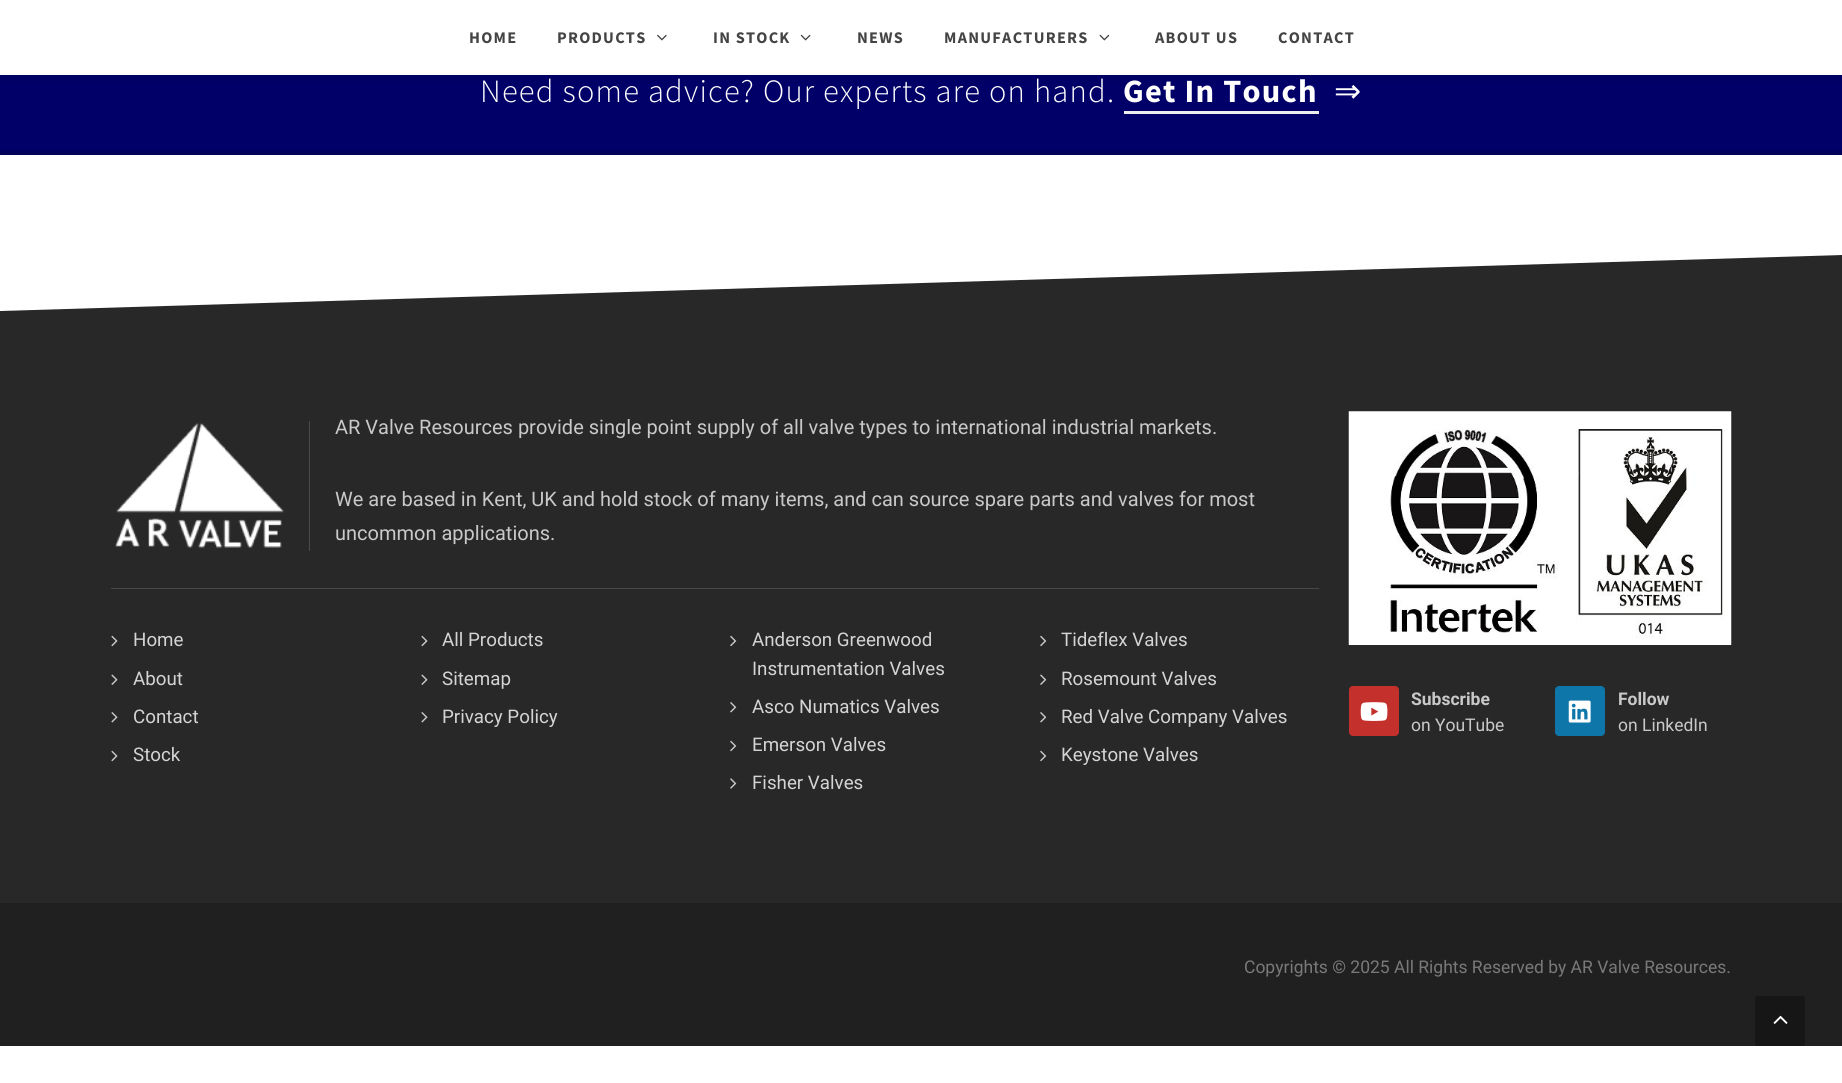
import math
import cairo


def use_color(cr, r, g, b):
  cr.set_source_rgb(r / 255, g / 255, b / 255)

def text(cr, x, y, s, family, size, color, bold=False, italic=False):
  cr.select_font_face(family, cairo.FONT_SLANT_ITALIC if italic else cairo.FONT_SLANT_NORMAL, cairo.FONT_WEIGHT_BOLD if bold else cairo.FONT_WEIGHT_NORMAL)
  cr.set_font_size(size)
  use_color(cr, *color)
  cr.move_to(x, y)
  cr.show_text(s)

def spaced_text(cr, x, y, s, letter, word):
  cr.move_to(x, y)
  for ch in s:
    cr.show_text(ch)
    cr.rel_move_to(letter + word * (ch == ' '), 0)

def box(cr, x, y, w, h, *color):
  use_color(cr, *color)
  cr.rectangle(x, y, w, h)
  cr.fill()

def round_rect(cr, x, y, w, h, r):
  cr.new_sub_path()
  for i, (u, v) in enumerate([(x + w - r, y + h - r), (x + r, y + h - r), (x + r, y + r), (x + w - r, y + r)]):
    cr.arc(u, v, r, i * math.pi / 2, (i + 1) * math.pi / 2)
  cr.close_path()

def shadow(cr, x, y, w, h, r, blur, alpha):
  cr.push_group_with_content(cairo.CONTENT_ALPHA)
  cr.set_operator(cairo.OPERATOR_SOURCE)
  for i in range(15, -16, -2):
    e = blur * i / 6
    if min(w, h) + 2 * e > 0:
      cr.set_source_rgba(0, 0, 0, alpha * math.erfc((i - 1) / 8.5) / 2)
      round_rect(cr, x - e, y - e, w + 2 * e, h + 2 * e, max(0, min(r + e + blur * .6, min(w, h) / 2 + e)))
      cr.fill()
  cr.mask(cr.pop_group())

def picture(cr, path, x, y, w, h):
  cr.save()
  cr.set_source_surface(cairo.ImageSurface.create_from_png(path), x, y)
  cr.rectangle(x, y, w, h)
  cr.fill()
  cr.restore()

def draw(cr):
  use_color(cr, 255, 255, 255)
  cr.paint()
  box(cr, 0, 75, 1842, 76, 0, 0, 104)
  use_color(cr, 0, 0, 0)
  shadow(cr, 0, 0, 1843, 75, 0, 6, 0.1)
  box(cr, 0, 0, 1842, 75, 255, 255, 255)
  picture(cr, "img_01.png", 657, 34, 10, 7)
  picture(cr, "img_02.png", 800, 34, 11, 7)
  picture(cr, "img_03.png", 1099, 34, 11, 7)
  box(cr, 0, 151, 1842, 4, 0, 0, 88)
  box(cr, 1124, 111, 195, 3, 238, 238, 238)
  box(cr, 0, 311, 1842, 592, 40, 40, 40)
  cr.new_path()
  cr.move_to(1842, 311)
  cr.line_to(1842, 255)
  cr.line_to(0, 311)
  cr.fill()
  box(cr, 309, 421, 1, 130, 74, 74, 74)
  picture(cr, "img_04.png", 115, 422, 169, 126)
  box(cr, 111, 588, 1208, 1, 72, 72, 72)
  picture(cr, "img_05.png", 111, 635, 7, 12)
  picture(cr, "img_06.png", 111, 674, 7, 11)
  picture(cr, "img_07.png", 111, 712, 7, 11)
  picture(cr, "img_05.png", 111, 750, 7, 12)
  picture(cr, "img_05.png", 421, 635, 7, 12)
  picture(cr, "img_06.png", 421, 674, 7, 11)
  picture(cr, "img_07.png", 421, 712, 7, 11)
  picture(cr, "img_08.png", 730, 635, 7, 12)
  picture(cr, "img_09.png", 730, 702, 7, 11)
  picture(cr, "img_08.png", 730, 740, 7, 12)
  picture(cr, "img_10.png", 730, 778, 7, 11)
  picture(cr, "img_08.png", 1040, 635, 7, 12)
  picture(cr, "img_11.png", 1040, 674, 7, 11)
  picture(cr, "img_09.png", 1040, 712, 7, 11)
  picture(cr, "img_08.png", 1040, 750, 7, 12)
  picture(cr, "img_12.png", 1348, 411, 384, 234)
  use_color(cr, 196, 48, 43)
  round_rect(cr, 1349, 686, 50, 50, 4)
  cr.fill()
  picture(cr, "img_13.png", 1360, 702, 28, 19)
  use_color(cr, 14, 118, 168)
  round_rect(cr, 1555, 686, 50, 50, 4)
  cr.fill()
  picture(cr, "img_14.png", 1568, 700, 23, 23)
  box(cr, 0, 903, 1842, 143, 32, 32, 32)
  use_color(cr, 22, 22, 22)
  round_rect(cr, 1755, 996, 50, 50, 2.5)
  cr.fill()
  picture(cr, "img_15.png", 1773, 1015, 15, 9)
  cr.select_font_face("Source Sans Pro", cairo.FONT_SLANT_NORMAL, cairo.FONT_WEIGHT_BOLD)
  cr.set_font_size(16.25)
  use_color(cr, 68, 68, 68)
  spaced_text(cr, 469, 43, "HOME", 1.25, 0)
  spaced_text(cr, 557, 43, "PRODUCTS", 1.25, 0)
  spaced_text(cr, 713, 43, "IN STOCK", 1.25, 0)
  spaced_text(cr, 857, 43, "NEWS", 1.25, 0)
  spaced_text(cr, 944, 43, "MANUFACTURERS", 1.25, 0)
  spaced_text(cr, 1155, 43, "ABOUT US", 1.25, 0)
  spaced_text(cr, 1278, 43, "CONTACT", 1.25, 0)
  cr.select_font_face("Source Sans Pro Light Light")
  cr.set_font_size(32.5)
  use_color(cr, 255, 255, 255)
  spaced_text(cr, 480, 102, "Need some advice? Our experts are on hand.", 1.25, 0)
  cr.select_font_face("Source Sans Pro", cairo.FONT_SLANT_NORMAL, cairo.FONT_WEIGHT_BOLD)
  spaced_text(cr, 1123, 102, "Get In Touch", 1.25, 0)
  cr.select_font_face("DejaVu Sans")
  spaced_text(cr, 1334, 102, "⇒", 1.25, 0)
  text(cr, 335, 434, "AR Valve Resources provide single point supply of all valve types to international industrial markets.", "Roboto", 20, (201, 201, 201))
  text(cr, 335, 506, "We are based in Kent, UK and hold stock of many items, and can source spare parts and valves for most", "Roboto", 20, (201, 201, 201))
  text(cr, 335, 540, "uncommon applications.", "Roboto", 20, (201, 201, 201))
  text(cr, 133, 646, "Home", "Roboto", 18.75, (212, 212, 212))
  text(cr, 133, 685, "About", "Roboto", 18.75, (212, 212, 212))
  text(cr, 133, 723, "Contact", "Roboto", 18.75, (212, 212, 212))
  text(cr, 133, 761, "Stock", "Roboto", 18.75, (212, 212, 212))
  text(cr, 442, 646, "All Products", "Roboto", 18.75, (212, 212, 212))
  text(cr, 442, 685, "Sitemap", "Roboto", 18.75, (212, 212, 212))
  text(cr, 442, 723, "Privacy Policy", "Roboto", 18.75, (212, 212, 212))
  text(cr, 752, 646, "Anderson Greenwood", "Roboto", 18.75, (212, 212, 212))
  text(cr, 752, 675, "Instrumentation Valves", "Roboto", 18.75, (212, 212, 212))
  text(cr, 752, 713, "Asco Numatics Valves", "Roboto", 18.75, (212, 212, 212))
  text(cr, 752, 751, "Emerson Valves", "Roboto", 18.75, (212, 212, 212))
  text(cr, 752, 789, "Fisher Valves", "Roboto", 18.75, (212, 212, 212))
  text(cr, 1061, 646, "Tideflex Valves", "Roboto", 18.75, (212, 212, 212))
  text(cr, 1061, 685, "Rosemount Valves", "Roboto", 18.75, (212, 212, 212))
  text(cr, 1061, 723, "Red Valve Company Valves", "Roboto", 18.75, (212, 212, 212))
  text(cr, 1061, 761, "Keystone Valves", "Roboto", 18.75, (212, 212, 212))
  text(cr, 1411, 705, "Subscribe", "Roboto", 17.5, (201, 201, 201), bold=True)
  text(cr, 1411, 731, "on YouTube", "Roboto", 17.5, (201, 201, 201))
  text(cr, 1618, 705, "Follow", "Roboto", 17.5, (201, 201, 201), bold=True)
  text(cr, 1618, 731, "on LinkedIn", "Roboto", 17.5, (201, 201, 201))
  text(cr, 1244, 973, "Copyrights © 2025 All Rights Reserved by AR Valve Resources.", "Roboto", 17.5, (121, 121, 121))


surface = cairo.ImageSurface(cairo.FORMAT_RGB24, 1842, 1083)
cr = cairo.Context(surface)
options = cairo.FontOptions()
options.set_hint_metrics(cairo.HINT_METRICS_OFF)
options.set_hint_style(cairo.HINT_STYLE_NONE)
cr.set_font_options(options)
cr.set_miter_limit(4)
draw(cr)
surface.write_to_png("out.png")
